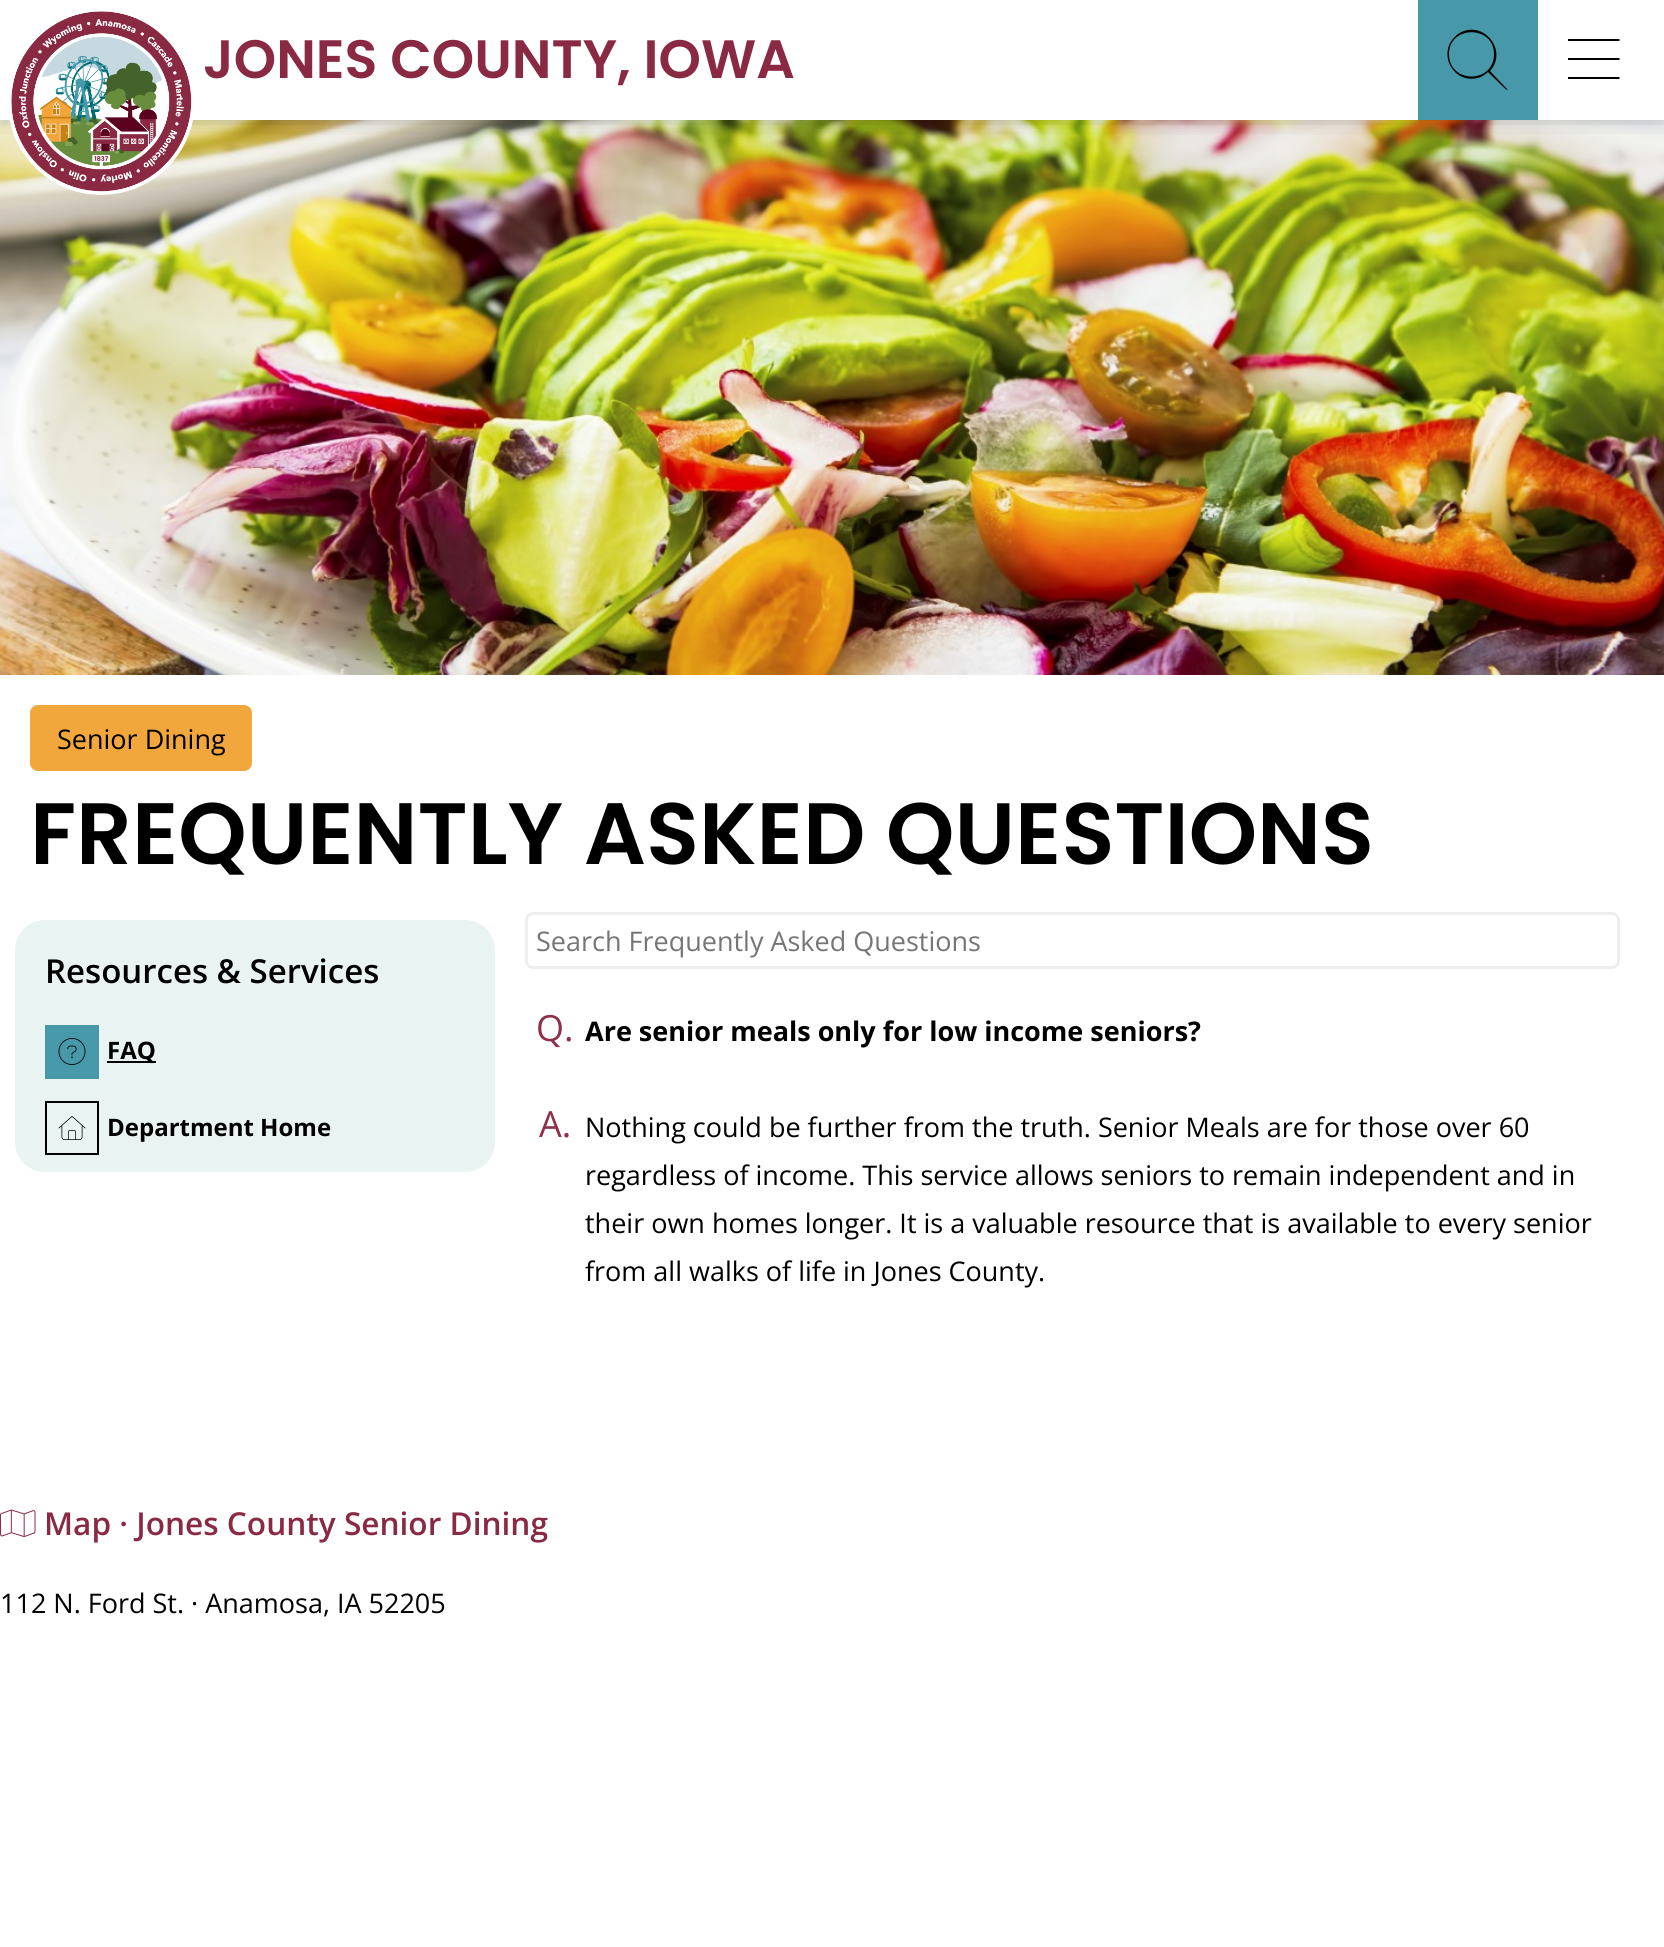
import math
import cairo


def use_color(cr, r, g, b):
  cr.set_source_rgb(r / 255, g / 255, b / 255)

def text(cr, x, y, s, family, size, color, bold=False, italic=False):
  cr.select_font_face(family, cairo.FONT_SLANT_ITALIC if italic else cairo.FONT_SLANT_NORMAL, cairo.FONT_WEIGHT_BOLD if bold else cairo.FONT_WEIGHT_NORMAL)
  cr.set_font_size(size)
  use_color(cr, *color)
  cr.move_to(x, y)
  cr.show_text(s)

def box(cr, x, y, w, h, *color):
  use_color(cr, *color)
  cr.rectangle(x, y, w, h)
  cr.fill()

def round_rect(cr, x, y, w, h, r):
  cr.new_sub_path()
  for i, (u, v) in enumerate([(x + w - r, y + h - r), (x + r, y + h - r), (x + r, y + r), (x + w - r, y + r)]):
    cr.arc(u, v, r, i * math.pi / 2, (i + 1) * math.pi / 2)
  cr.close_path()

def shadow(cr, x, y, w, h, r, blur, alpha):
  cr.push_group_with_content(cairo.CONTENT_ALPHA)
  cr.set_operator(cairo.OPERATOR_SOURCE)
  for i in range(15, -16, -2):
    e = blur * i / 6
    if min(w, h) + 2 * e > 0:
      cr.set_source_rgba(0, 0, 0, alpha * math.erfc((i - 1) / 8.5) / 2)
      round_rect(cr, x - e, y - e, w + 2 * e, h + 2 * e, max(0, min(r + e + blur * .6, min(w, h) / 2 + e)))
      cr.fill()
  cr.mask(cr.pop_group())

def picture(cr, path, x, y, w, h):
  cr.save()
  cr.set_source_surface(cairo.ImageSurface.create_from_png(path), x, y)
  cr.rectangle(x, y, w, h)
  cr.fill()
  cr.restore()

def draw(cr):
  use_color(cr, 255, 255, 255)
  cr.paint()
  picture(cr, "img_02.png", 0, 120, 1664, 555)
  cr.save()
  cr.rectangle(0, 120, 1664, 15)
  cr.clip()
  use_color(cr, 0, 0, 0)
  shadow(cr, 0, 3, 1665, 120, 0, 12, 0.12)
  cr.restore()
  cr.save()
  cr.rectangle(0, 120, 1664, 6)
  cr.clip()
  use_color(cr, 0, 0, 0)
  shadow(cr, 0, 5, 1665, 120, 0, 2, 0.06)
  cr.restore()
  picture(cr, "img_01.png", 9, 11, 184, 184)
  box(cr, 1418, 0, 120, 120, 71, 153, 169)
  use_color(cr, 0, 0, 0)
  cr.new_path()
  cr.move_to(1494, 54)
  cr.curve_to(1494, 25, 1449, 25, 1449, 54)
  cr.curve_to(1449, 84, 1494, 84, 1494, 54)
  cr.close_path()
  cr.move_to(1488, 72)
  cr.curve_to(1479, 81, 1464, 81, 1455, 72)
  cr.curve_to(1449, 66, 1446, 57, 1448, 49)
  cr.curve_to(1449, 43, 1453, 38, 1458, 34)
  cr.curve_to(1482, 18, 1509, 50, 1490, 71)
  cr.line_to(1507, 89)
  cr.curve_to(1508, 89, 1507, 90, 1507, 90)
  cr.curve_to(1506, 90, 1490, 74, 1488, 72)
  cr.close_path()
  cr.fill()
  cr.new_path()
  cr.move_to(1568, 40)
  cr.line_to(1568, 39)
  cr.line_to(1619, 39)
  cr.line_to(1620, 40)
  cr.line_to(1619, 41)
  cr.line_to(1568, 41)
  cr.close_path()
  cr.move_to(1568, 59)
  cr.line_to(1568, 58)
  cr.line_to(1619, 58)
  cr.line_to(1620, 59)
  cr.line_to(1619, 60)
  cr.line_to(1568, 60)
  cr.close_path()
  cr.move_to(1620, 78)
  cr.line_to(1619, 79)
  cr.line_to(1568, 79)
  cr.line_to(1568, 78)
  cr.line_to(1568, 77)
  cr.line_to(1619, 77)
  cr.close_path()
  cr.fill()
  use_color(cr, 242, 167, 61)
  round_rect(cr, 31.5, 706.5, 219, 63, 6.5)
  cr.fill_preserve()
  cr.set_line_width(3)
  cr.stroke()
  use_color(cr, 233, 244, 242)
  round_rect(cr, 15, 920, 480, 252, 30)
  cr.fill()
  box(cr, 45, 1025, 54, 54, 71, 153, 169)
  picture(cr, "img_03.png", 58, 1038, 28, 27)
  box(cr, 107, 1061, 49, 2, 0, 0, 0)
  cr.rectangle(46, 1102, 52, 52)
  cr.set_line_width(2)
  cr.stroke()
  picture(cr, "img_04.png", 58, 1116, 28, 24)
  round_rect(cr, 526.5, 913.5, 1092, 54, 6.5)
  use_color(cr, 238, 238, 238)
  cr.set_line_width(3)
  cr.stroke()
  picture(cr, "img_05.png", 0, 1509, 36, 29)
  text(cr, 203, 78, "JONES COUNTY, IOWA", "Poppins SemiBold", 54, (137, 42, 66))
  text(cr, 57, 749, "Senior Dining", "Open Sans", 27, (0, 0, 0))
  text(cr, 30, 864, "FREQUENTLY ASKED QUESTIONS", "Poppins SemiBold", 87, (0, 0, 0))
  text(cr, 45, 983, "Resources & Services", "Open Sans SemiBold", 33, (0, 0, 0))
  text(cr, 107, 1059, "FAQ", "Open Sans", 24, (0, 0, 0), bold=True)
  text(cr, 107, 1136, "Department Home", "Open Sans", 24, (0, 0, 0), bold=True)
  text(cr, 536, 951, "Search Frequently Asked Questions", "Open Sans", 27, (117, 117, 117))
  text(cr, 536, 1041, "Q.", "Open Sans", 36, (141, 48, 72))
  text(cr, 585, 1041, "Are senior meals only for low income seniors?", "Open Sans", 27, (0, 0, 0), bold=True)
  text(cr, 539, 1137, "A.", "Open Sans", 36, (141, 48, 72))
  text(cr, 585, 1137, "Nothing could be further from the truth. Senior Meals are for those over 60", "Open Sans", 27, (0, 0, 0))
  text(cr, 585, 1185, "regardless of income. This service allows seniors to remain independent and in", "Open Sans", 27, (0, 0, 0))
  text(cr, 585, 1233, "their own homes longer. It is a valuable resource that is available to every senior", "Open Sans", 27, (0, 0, 0))
  text(cr, 585, 1281, "from all walks of life in Jones County.", "Open Sans", 27, (0, 0, 0))
  text(cr, 44, 1535, "Map · Jones County Senior Dining", "Open Sans SemiBold", 31.6, (137, 42, 66))
  text(cr, 0, 1613, "112 N. Ford St. · Anamosa, IA 52205", "Open Sans", 27, (0, 0, 0))


surface = cairo.ImageSurface(cairo.FORMAT_RGB24, 1664, 1947)
cr = cairo.Context(surface)
options = cairo.FontOptions()
options.set_hint_metrics(cairo.HINT_METRICS_OFF)
options.set_hint_style(cairo.HINT_STYLE_NONE)
cr.set_font_options(options)
cr.set_miter_limit(4)
draw(cr)
surface.write_to_png("out.png")
